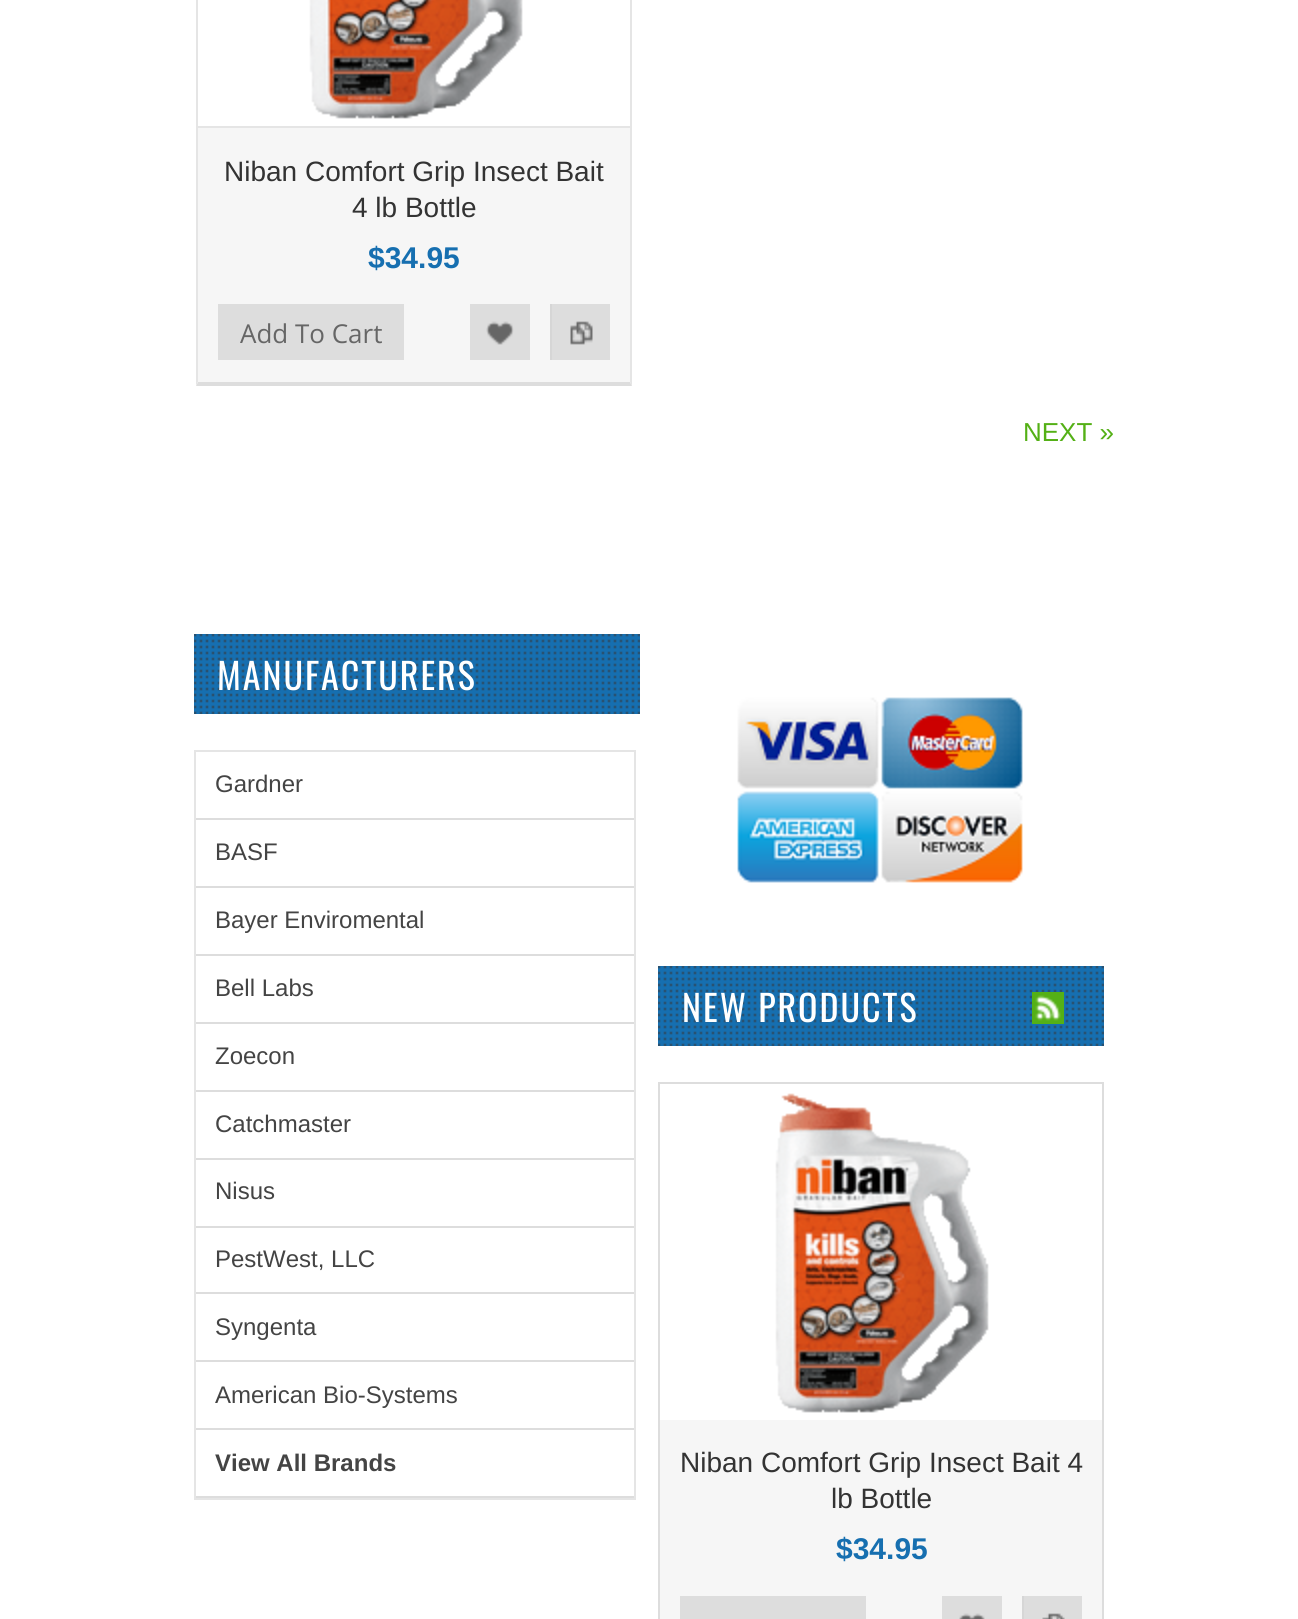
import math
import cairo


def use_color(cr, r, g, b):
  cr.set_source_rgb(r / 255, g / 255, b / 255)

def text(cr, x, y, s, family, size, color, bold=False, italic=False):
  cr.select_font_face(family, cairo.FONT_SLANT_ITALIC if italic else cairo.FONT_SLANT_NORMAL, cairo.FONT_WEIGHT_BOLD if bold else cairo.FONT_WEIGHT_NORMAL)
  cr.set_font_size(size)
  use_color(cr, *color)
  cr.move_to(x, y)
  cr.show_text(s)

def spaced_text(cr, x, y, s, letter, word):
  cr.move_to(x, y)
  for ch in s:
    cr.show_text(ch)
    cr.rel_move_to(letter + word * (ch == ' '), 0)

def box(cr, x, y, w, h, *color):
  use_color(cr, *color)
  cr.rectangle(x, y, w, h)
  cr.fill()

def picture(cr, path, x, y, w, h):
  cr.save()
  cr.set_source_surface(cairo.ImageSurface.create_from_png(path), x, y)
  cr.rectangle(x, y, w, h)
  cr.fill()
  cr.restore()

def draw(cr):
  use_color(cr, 255, 255, 255)
  cr.paint()
  box(cr, 198, 128, 432, 254, 246, 246, 246)
  use_color(cr, 229, 229, 229)
  cr.new_path()
  cr.move_to(632, -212)
  cr.line_to(632, 386)
  cr.line_to(630, 382)
  cr.line_to(630, -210)
  cr.close_path()
  cr.fill()
  use_color(cr, 221, 221, 221)
  cr.new_path()
  cr.move_to(632, 386)
  cr.line_to(196, 386)
  cr.line_to(198, 382)
  cr.line_to(630, 382)
  cr.close_path()
  cr.fill()
  use_color(cr, 229, 229, 229)
  cr.new_path()
  cr.move_to(196, 386)
  cr.line_to(196, -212)
  cr.line_to(198, -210)
  cr.line_to(198, 382)
  cr.close_path()
  cr.fill()
  box(cr, 198, 126, 432, 2, 229, 229, 229)
  picture(cr, "img_01.png", 309, 0, 214, 119)
  box(cr, 218, 304, 186, 56, 221, 221, 221)
  box(cr, 470, 304, 60, 56, 221, 221, 221)
  picture(cr, "img_02.png", 486, 321, 28, 24)
  box(cr, 552, 304, 58, 56, 221, 221, 221)
  picture(cr, "img_03.png", 570, 321, 23, 24)
  box(cr, 550, 304, 2, 56, 214, 214, 214)
  box(cr, 194, 634, 446, 80, 22, 111, 176)
  picture(cr, "img_04.png", 194, 634, 446, 80)
  cr.rectangle(195, 751, 440, 748)
  use_color(cr, 229, 229, 229)
  cr.stroke()
  box(cr, 196, 818, 438, 2, 221, 221, 221)
  box(cr, 196, 886, 438, 2, 221, 221, 221)
  box(cr, 196, 954, 438, 2, 221, 221, 221)
  box(cr, 196, 1022, 438, 2, 221, 221, 221)
  box(cr, 196, 1090, 438, 2, 221, 221, 221)
  box(cr, 196, 1158, 438, 2, 221, 221, 221)
  box(cr, 196, 1226, 438, 2, 221, 221, 221)
  box(cr, 196, 1292, 438, 2, 221, 221, 221)
  box(cr, 196, 1360, 438, 2, 221, 221, 221)
  box(cr, 196, 1428, 438, 2, 221, 221, 221)
  box(cr, 196, 1496, 438, 2, 221, 221, 221)
  picture(cr, "img_05.png", 737, 697, 286, 186)
  box(cr, 658, 966, 446, 80, 22, 111, 176)
  picture(cr, "img_06.png", 658, 966, 446, 80)
  picture(cr, "img_07.png", 1032, 992, 32, 32)
  cr.rectangle(659, 1083, 444, 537)
  use_color(cr, 221, 221, 221)
  cr.stroke()
  box(cr, 660, 1420, 442, 199, 246, 246, 246)
  picture(cr, "img_08.png", 775, 1093, 214, 320)
  box(cr, 680, 1596, 186, 23, 221, 221, 221)
  box(cr, 942, 1596, 60, 23, 221, 221, 221)
  picture(cr, "img_09.png", 959, 1613, 26, 6)
  box(cr, 1024, 1596, 58, 23, 221, 221, 221)
  picture(cr, "img_10.png", 1042, 1613, 23, 6)
  box(cr, 1022, 1596, 2, 23, 214, 214, 214)
  text(cr, 224, 181, "Niban Comfort Grip Insect Bait", "Liberation Sans", 28, (51, 51, 51))
  text(cr, 352, 217, "4 lb Bottle", "Liberation Sans", 28, (51, 51, 51))
  text(cr, 368, 268, "$34.95", "Liberation Sans", 30, (22, 111, 176), bold=True)
  text(cr, 240, 343, "Add To Cart", "Open Sans", 26, (102, 102, 102))
  text(cr, 1023, 441, "NEXT »", "Liberation Sans", 26, (84, 176, 22))
  cr.select_font_face("Oswald")
  cr.set_font_size(36)
  use_color(cr, 255, 255, 255)
  spaced_text(cr, 217, 690, "MANUFACTURERS", 2, 0)
  text(cr, 215, 792, "Gardner", "Liberation Sans", 24, (68, 68, 68))
  text(cr, 215, 860, "BASF", "Liberation Sans", 24, (68, 68, 68))
  text(cr, 215, 928, "Bayer Enviromental", "Liberation Sans", 24, (68, 68, 68))
  text(cr, 215, 996, "Bell Labs", "Liberation Sans", 24, (68, 68, 68))
  text(cr, 215, 1064, "Zoecon", "Liberation Sans", 24, (68, 68, 68))
  text(cr, 215, 1132, "Catchmaster", "Liberation Sans", 24, (68, 68, 68))
  text(cr, 215, 1199, "Nisus", "Liberation Sans", 24, (68, 68, 68))
  text(cr, 215, 1267, "PestWest, LLC", "Liberation Sans", 24, (68, 68, 68))
  text(cr, 215, 1335, "Syngenta", "Liberation Sans", 24, (68, 68, 68))
  text(cr, 215, 1403, "American Bio-Systems", "Liberation Sans", 24, (68, 68, 68))
  text(cr, 215, 1471, "View All Brands", "Liberation Sans", 24, (68, 68, 68), bold=True)
  cr.select_font_face("Oswald")
  cr.set_font_size(36)
  use_color(cr, 255, 255, 255)
  spaced_text(cr, 682, 1022, "NEW PRODUCTS", 2, 0)
  text(cr, 680, 1472, "Niban Comfort Grip Insect Bait 4", "Liberation Sans", 28, (51, 51, 51))
  text(cr, 831, 1508, "lb Bottle", "Liberation Sans", 28, (51, 51, 51))
  text(cr, 836, 1559, "$34.95", "Liberation Sans", 30, (22, 111, 176), bold=True)


surface = cairo.ImageSurface(cairo.FORMAT_RGB24, 1298, 1619)
cr = cairo.Context(surface)
options = cairo.FontOptions()
options.set_hint_metrics(cairo.HINT_METRICS_OFF)
options.set_hint_style(cairo.HINT_STYLE_NONE)
cr.set_font_options(options)
cr.set_miter_limit(4)
draw(cr)
surface.write_to_png("out.png")
